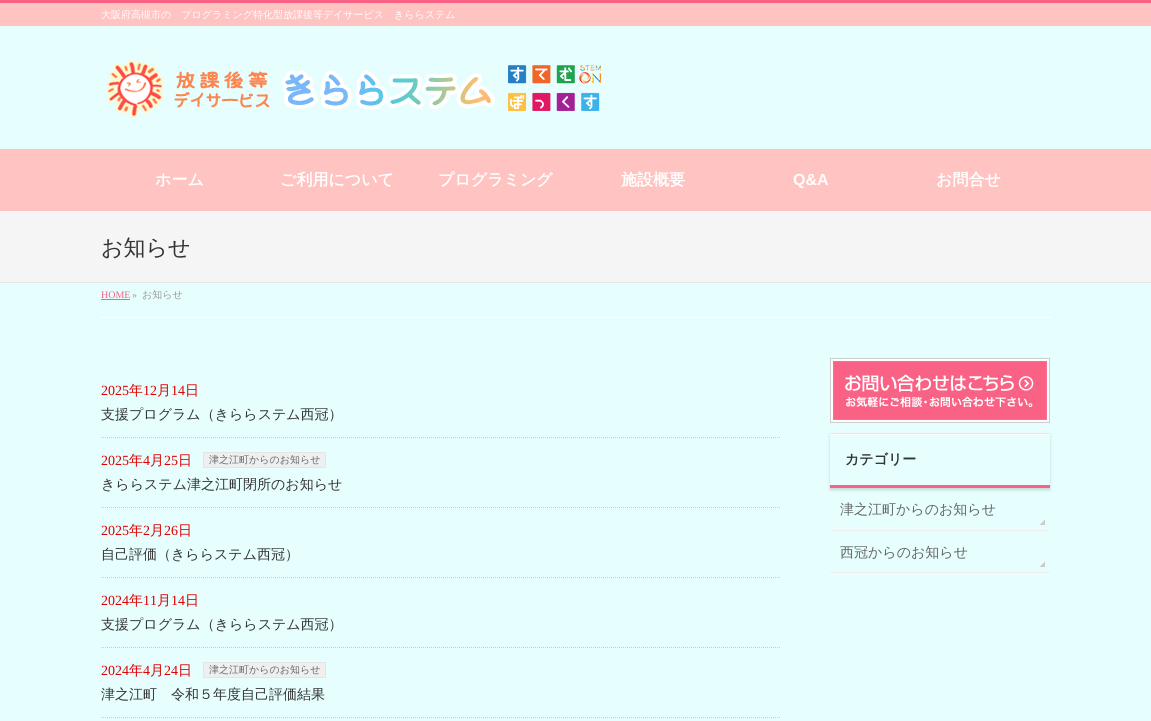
import math
import cairo


def use_color(cr, r, g, b):
  cr.set_source_rgb(r / 255, g / 255, b / 255)

def text(cr, x, y, s, family, size, color, bold=False, italic=False):
  cr.select_font_face(family, cairo.FONT_SLANT_ITALIC if italic else cairo.FONT_SLANT_NORMAL, cairo.FONT_WEIGHT_BOLD if bold else cairo.FONT_WEIGHT_NORMAL)
  cr.set_font_size(size)
  use_color(cr, *color)
  cr.move_to(x, y)
  cr.show_text(s)

def box(cr, x, y, w, h, *color):
  use_color(cr, *color)
  cr.rectangle(x, y, w, h)
  cr.fill()

def round_rect(cr, x, y, w, h, r):
  cr.new_sub_path()
  for i, (u, v) in enumerate([(x + w - r, y + h - r), (x + r, y + h - r), (x + r, y + r), (x + w - r, y + r)]):
    cr.arc(u, v, r, i * math.pi / 2, (i + 1) * math.pi / 2)
  cr.close_path()

def shadow(cr, x, y, w, h, r, blur, alpha):
  cr.push_group_with_content(cairo.CONTENT_ALPHA)
  cr.set_operator(cairo.OPERATOR_SOURCE)
  for i in range(15, -16, -2):
    e = blur * i / 6
    if min(w, h) + 2 * e > 0:
      cr.set_source_rgba(0, 0, 0, alpha * math.erfc((i - 1) / 8.5) / 2)
      round_rect(cr, x - e, y - e, w + 2 * e, h + 2 * e, max(0, min(r + e + blur * .6, min(w, h) / 2 + e)))
      cr.fill()
  cr.mask(cr.pop_group())

def picture(cr, path, x, y, w, h):
  cr.save()
  cr.set_source_surface(cairo.ImageSurface.create_from_png(path), x, y)
  cr.rectangle(x, y, w, h)
  cr.fill()
  cr.restore()

def draw(cr):
  use_color(cr, 230, 254, 254)
  cr.paint()
  box(cr, 0, 3, 1151, 23, 255, 195, 193)
  box(cr, 0, 0, 1151, 3, 249, 97, 133)
  picture(cr, "img_01.png", 106, 60, 495, 58)
  box(cr, 0, 149, 1151, 62, 255, 195, 193)
  box(cr, 0, 211, 1151, 71, 245, 245, 245)
  box(cr, 0, 282, 1151, 1, 229, 229, 229)
  box(cr, 101, 317, 950, 1, 255, 255, 255)
  box(cr, 101, 299, 29, 1, 249, 97, 133)
  cr.new_path()
  cr.move_to(101, 437.5)
  cr.line_to(781, 437.5)
  use_color(cr, 204, 204, 204)
  cr.set_line_width(1)
  cr.set_dash([1, 1])
  cr.stroke()
  cr.new_path()
  cr.move_to(101, 507.5)
  cr.line_to(781, 507.5)
  cr.stroke()
  use_color(cr, 239, 239, 239)
  cr.rectangle(203.5, 452.5, 122, 15)
  cr.fill_preserve()
  use_color(cr, 229, 229, 229)
  cr.set_dash([])
  cr.stroke()
  cr.new_path()
  cr.move_to(101, 577.5)
  cr.line_to(781, 577.5)
  use_color(cr, 204, 204, 204)
  cr.set_dash([1, 1])
  cr.stroke()
  cr.new_path()
  cr.move_to(101, 647.5)
  cr.line_to(781, 647.5)
  cr.stroke()
  cr.new_path()
  cr.move_to(101, 717.5)
  cr.line_to(781, 717.5)
  cr.stroke()
  use_color(cr, 239, 239, 239)
  cr.rectangle(203.5, 662.5, 122, 15)
  cr.fill_preserve()
  use_color(cr, 229, 229, 229)
  cr.set_dash([])
  cr.stroke()
  box(cr, 833, 361, 214, 59, 249, 97, 133)
  picture(cr, "img_02.png", 830, 358, 220, 65)
  cr.save()
  cr.set_fill_rule(cairo.FILL_RULE_EVEN_ODD)
  cr.new_path()
  cr.move_to(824, 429)
  cr.line_to(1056, 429)
  cr.line_to(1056, 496)
  cr.line_to(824, 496)
  cr.close_path()
  cr.move_to(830, 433)
  cr.line_to(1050, 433)
  cr.line_to(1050, 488)
  cr.line_to(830, 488)
  cr.close_path()
  cr.clip()
  use_color(cr, 0, 0, 0)
  shadow(cr, 830, 435, 220, 55, 0, 1.5, 0.15)
  cr.restore()
  box(cr, 830, 434, 220, 1, 255, 255, 255)
  box(cr, 830, 433, 220, 1, 229, 229, 229)
  box(cr, 830, 485, 220, 3, 249, 97, 133)
  box(cr, 830, 530, 220, 1, 238, 238, 238)
  picture(cr, "img_03.png", 1040, 520, 5, 5)
  box(cr, 830, 572, 220, 1, 238, 238, 238)
  picture(cr, "img_03.png", 1040, 562, 5, 5)
  text(cr, 101, 18, "大阪府高槻市の　プログラミング特化型放課後等デイサービス　きららステム", "WenQuanYi Zen Hei Medium", 10, (255, 255, 255))
  text(cr, 155, 185, "ホーム", "WenQuanYi Zen Hei", 16, (255, 255, 255), bold=True)
  text(cr, 280, 185, "ご利用について", "WenQuanYi Zen Hei", 16, (255, 255, 255), bold=True)
  text(cr, 438, 185, "プログラミング", "WenQuanYi Zen Hei", 16, (255, 255, 255), bold=True)
  text(cr, 621, 185, "施設概要", "WenQuanYi Zen Hei", 16, (255, 255, 255), bold=True)
  text(cr, 793, 185, "Q&A", "Liberation Sans", 16, (255, 255, 255), bold=True)
  text(cr, 936, 185, "お問合せ", "WenQuanYi Zen Hei", 16, (255, 255, 255), bold=True)
  text(cr, 101, 255, "お知らせ", "WenQuanYi Zen Hei Medium", 22, (51, 51, 51))
  text(cr, 101, 298, "HOME", "Liberation Serif", 10, (249, 97, 133))
  text(cr, 132, 298, "»", "Liberation Serif", 10, (153, 153, 153))
  text(cr, 142, 298, "お知らせ", "WenQuanYi Zen Hei Medium", 10, (153, 153, 153))
  text(cr, 101, 395, "2025", "Liberation Serif", 14, (221, 0, 0))
  text(cr, 129, 395, "年", "WenQuanYi Zen Hei Medium", 14, (221, 0, 0))
  text(cr, 143, 395, "12", "Liberation Serif", 14, (221, 0, 0))
  text(cr, 157, 395, "月", "WenQuanYi Zen Hei Medium", 14, (221, 0, 0))
  text(cr, 171, 395, "14", "Liberation Serif", 14, (221, 0, 0))
  text(cr, 185, 395, "日", "WenQuanYi Zen Hei Medium", 14, (221, 0, 0))
  text(cr, 101, 419, "支援プログラム（きららステム西冠）", "WenQuanYi Zen Hei Medium", 14, (51, 51, 51))
  text(cr, 101, 465, "2025", "Liberation Serif", 14, (221, 0, 0))
  text(cr, 129, 465, "年", "WenQuanYi Zen Hei Medium", 14, (221, 0, 0))
  text(cr, 143, 465, "4", "Liberation Serif", 14, (221, 0, 0))
  text(cr, 150, 465, "月", "WenQuanYi Zen Hei Medium", 14, (221, 0, 0))
  text(cr, 164, 465, "25", "Liberation Serif", 14, (221, 0, 0))
  text(cr, 178, 465, "日", "WenQuanYi Zen Hei Medium", 14, (221, 0, 0))
  text(cr, 209, 463, "津之江町からのお知らせ", "WenQuanYi Zen Hei Medium", 10, (102, 102, 102))
  text(cr, 101, 489, "きららステム津之江町閉所のお知らせ", "WenQuanYi Zen Hei Medium", 14, (51, 51, 51))
  text(cr, 101, 535, "2025", "Liberation Serif", 14, (221, 0, 0))
  text(cr, 129, 535, "年", "WenQuanYi Zen Hei Medium", 14, (221, 0, 0))
  text(cr, 143, 535, "2", "Liberation Serif", 14, (221, 0, 0))
  text(cr, 150, 535, "月", "WenQuanYi Zen Hei Medium", 14, (221, 0, 0))
  text(cr, 164, 535, "26", "Liberation Serif", 14, (221, 0, 0))
  text(cr, 178, 535, "日", "WenQuanYi Zen Hei Medium", 14, (221, 0, 0))
  text(cr, 101, 559, "自己評価（きららステム西冠）", "WenQuanYi Zen Hei Medium", 14, (51, 51, 51))
  text(cr, 101, 605, "2024", "Liberation Serif", 14, (221, 0, 0))
  text(cr, 129, 605, "年", "WenQuanYi Zen Hei Medium", 14, (221, 0, 0))
  text(cr, 143, 605, "11", "Liberation Serif", 14, (221, 0, 0))
  text(cr, 157, 605, "月", "WenQuanYi Zen Hei Medium", 14, (221, 0, 0))
  text(cr, 171, 605, "14", "Liberation Serif", 14, (221, 0, 0))
  text(cr, 185, 605, "日", "WenQuanYi Zen Hei Medium", 14, (221, 0, 0))
  text(cr, 101, 629, "支援プログラム（きららステム西冠）", "WenQuanYi Zen Hei Medium", 14, (51, 51, 51))
  text(cr, 101, 675, "2024", "Liberation Serif", 14, (221, 0, 0))
  text(cr, 129, 675, "年", "WenQuanYi Zen Hei Medium", 14, (221, 0, 0))
  text(cr, 143, 675, "4", "Liberation Serif", 14, (221, 0, 0))
  text(cr, 150, 675, "月", "WenQuanYi Zen Hei Medium", 14, (221, 0, 0))
  text(cr, 164, 675, "24", "Liberation Serif", 14, (221, 0, 0))
  text(cr, 178, 675, "日", "WenQuanYi Zen Hei Medium", 14, (221, 0, 0))
  text(cr, 209, 673, "津之江町からのお知らせ", "WenQuanYi Zen Hei Medium", 10, (102, 102, 102))
  text(cr, 101, 699, "津之江町　令和５年度自己評価結果", "WenQuanYi Zen Hei Medium", 14, (51, 51, 51))
  text(cr, 845, 464, "カテゴリー", "WenQuanYi Zen Hei", 14, (51, 51, 51), bold=True)
  text(cr, 840, 514, "津之江町からのお知らせ", "WenQuanYi Zen Hei Medium", 14, (102, 102, 102))
  text(cr, 840, 557, "西冠からのお知らせ", "WenQuanYi Zen Hei Medium", 14, (102, 102, 102))


surface = cairo.ImageSurface(cairo.FORMAT_RGB24, 1151, 721)
cr = cairo.Context(surface)
options = cairo.FontOptions()
options.set_hint_metrics(cairo.HINT_METRICS_OFF)
options.set_hint_style(cairo.HINT_STYLE_NONE)
cr.set_font_options(options)
cr.set_miter_limit(4)
draw(cr)
surface.write_to_png("out.png")
